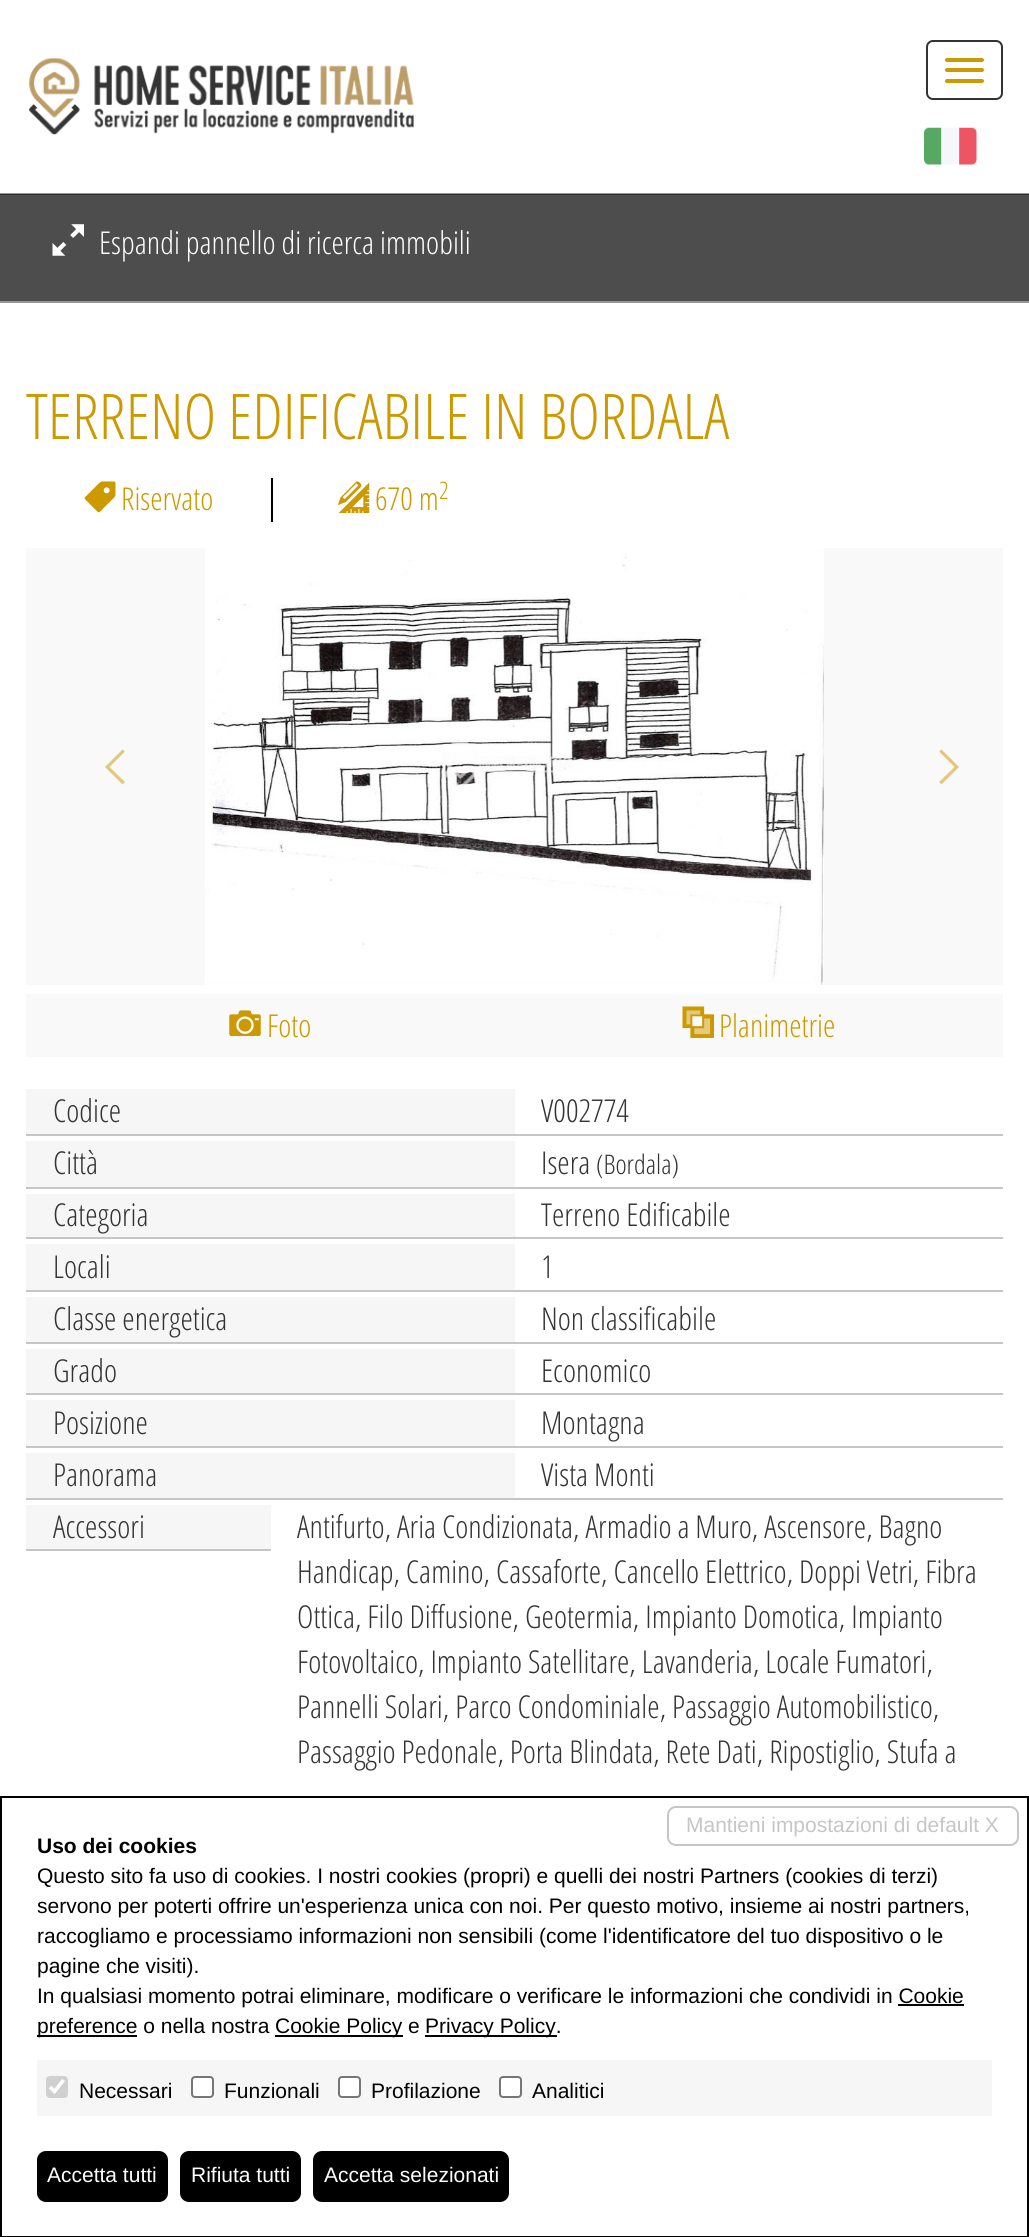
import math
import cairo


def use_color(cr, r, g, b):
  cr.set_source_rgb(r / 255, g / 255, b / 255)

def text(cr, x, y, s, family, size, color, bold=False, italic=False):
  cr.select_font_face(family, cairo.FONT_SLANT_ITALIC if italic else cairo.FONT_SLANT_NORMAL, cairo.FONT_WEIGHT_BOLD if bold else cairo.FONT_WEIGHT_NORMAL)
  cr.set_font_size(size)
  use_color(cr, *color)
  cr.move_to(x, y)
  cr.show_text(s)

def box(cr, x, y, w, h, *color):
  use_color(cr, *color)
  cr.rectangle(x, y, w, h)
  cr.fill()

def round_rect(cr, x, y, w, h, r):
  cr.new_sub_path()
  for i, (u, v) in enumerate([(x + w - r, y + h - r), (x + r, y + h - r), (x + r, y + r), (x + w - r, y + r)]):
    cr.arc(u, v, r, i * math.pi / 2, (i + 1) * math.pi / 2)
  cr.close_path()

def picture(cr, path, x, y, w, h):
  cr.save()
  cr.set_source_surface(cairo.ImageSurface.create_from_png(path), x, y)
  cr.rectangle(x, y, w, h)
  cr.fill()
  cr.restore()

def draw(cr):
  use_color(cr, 255, 255, 255)
  cr.paint()
  box(cr, 0, 195, 1029, 106, 77, 77, 77)
  box(cr, 0, 193, 1029, 1, 150, 150, 150)
  box(cr, 0, 194, 1029, 1, 45, 45, 45)
  picture(cr, "img_01.png", 29, 58, 385, 77)
  round_rect(cr, 927, 41, 75, 58, 6)
  use_color(cr, 51, 51, 51)
  cr.stroke()
  use_color(cr, 204, 153, 0)
  round_rect(cr, 945, 58, 39, 4, 2)
  cr.fill()
  round_rect(cr, 945, 68, 39, 4, 2)
  cr.fill()
  round_rect(cr, 945, 79, 39, 4, 2)
  cr.fill()
  picture(cr, "img_02.png", 924, 127, 53, 38)
  box(cr, 0, 301, 1029, 2, 150, 150, 150)
  picture(cr, "img_03.png", 52, 224, 32, 32)
  picture(cr, "img_04.png", 84, 481, 32, 32)
  box(cr, 271, 478, 2, 44, 0, 0, 0)
  picture(cr, "img_05.png", 337, 481, 33, 32)
  box(cr, 26, 548, 977, 437, 249, 249, 249)
  picture(cr, "img_06.png", 205, 548, 619, 437)
  use_color(cr, 227, 201, 125)
  cr.new_path()
  cr.move_to(122.5, 784.5)
  cr.line_to(125, 782)
  cr.line_to(109.5, 767)
  cr.line_to(125, 751.5)
  cr.line_to(122.5, 749.5)
  cr.line_to(105, 767)
  cr.close_path()
  cr.fill()
  cr.new_path()
  cr.move_to(941.5, 749.5)
  cr.line_to(939, 751.5)
  cr.line_to(954.5, 767)
  cr.line_to(939, 782)
  cr.line_to(941.5, 784.5)
  cr.line_to(959, 767)
  cr.close_path()
  cr.fill()
  box(cr, 26, 994, 977, 63, 249, 249, 249)
  picture(cr, "img_07.png", 229, 1010, 32, 26)
  picture(cr, "img_08.png", 682, 1006, 32, 32)
  box(cr, 26, 1089, 489, 45, 246, 246, 246)
  box(cr, 26, 1134, 977, 2, 198, 198, 198)
  box(cr, 26, 1141, 489, 46, 246, 246, 246)
  box(cr, 26, 1187, 977, 2, 198, 198, 198)
  box(cr, 26, 1194, 489, 43, 246, 246, 246)
  box(cr, 26, 1237, 977, 2, 198, 198, 198)
  box(cr, 26, 1244, 489, 46, 246, 246, 246)
  box(cr, 26, 1290, 977, 2, 198, 198, 198)
  box(cr, 26, 1297, 489, 45, 246, 246, 246)
  box(cr, 26, 1342, 977, 2, 198, 198, 198)
  box(cr, 26, 1349, 489, 44, 246, 246, 246)
  box(cr, 26, 1393, 977, 2, 198, 198, 198)
  box(cr, 26, 1400, 489, 46, 246, 246, 246)
  box(cr, 26, 1446, 977, 2, 198, 198, 198)
  box(cr, 26, 1453, 489, 45, 246, 246, 246)
  box(cr, 26, 1498, 977, 2, 198, 198, 198)
  box(cr, 26, 1505, 245, 44, 246, 246, 246)
  box(cr, 26, 1549, 245, 2, 198, 198, 198)
  cr.rectangle(1, 1797, 1027, 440)
  use_color(cr, 0, 0, 0)
  cr.stroke()
  round_rect(cr, 668, 1807, 350, 38, 8)
  use_color(cr, 198, 198, 198)
  cr.stroke()
  box(cr, 898, 2004, 66, 2, 0, 0, 0)
  box(cr, 37, 2035, 100, 2, 0, 0, 0)
  box(cr, 275, 2035, 128, 2, 0, 0, 0)
  box(cr, 425, 2035, 132, 2, 0, 0, 0)
  box(cr, 37, 2060, 955, 56, 246, 246, 246)
  use_color(cr, 208, 208, 208)
  round_rect(cr, 46, 2076, 22, 22, 4)
  cr.fill()
  cr.new_path()
  cr.move_to(50, 2087)
  cr.line_to(54.5, 2091.5)
  cr.line_to(63.5, 2080)
  use_color(cr, 255, 255, 255)
  cr.set_line_width(3.6)
  cr.stroke()
  round_rect(cr, 192, 2077, 21, 20, 3)
  cr.fill_preserve()
  use_color(cr, 118, 118, 118)
  cr.set_line_width(2)
  cr.stroke()
  use_color(cr, 255, 255, 255)
  round_rect(cr, 339, 2077, 21, 20, 3)
  cr.fill_preserve()
  use_color(cr, 118, 118, 118)
  cr.stroke()
  use_color(cr, 255, 255, 255)
  round_rect(cr, 500, 2077, 21, 20, 3)
  cr.fill_preserve()
  use_color(cr, 118, 118, 118)
  cr.stroke()
  use_color(cr, 0, 0, 0)
  round_rect(cr, 38, 2152, 129, 49, 8)
  cr.fill_preserve()
  cr.stroke()
  round_rect(cr, 181, 2152, 119, 49, 8)
  cr.fill_preserve()
  cr.stroke()
  round_rect(cr, 314, 2152, 194, 49, 8)
  cr.fill_preserve()
  cr.stroke()
  text(cr, 99, 254, "Espandi pannello di ricerca immobili", "Open Sans Condensed Light", 31.5, (255, 255, 255))
  text(cr, 26, 439, "TERRENO EDIFICABILE IN BORDALA", "Open Sans Condensed Light", 63, (204, 153, 0))
  text(cr, 121, 510, "Riservato", "Open Sans Condensed Light", 31.5, (204, 153, 0))
  text(cr, 375, 510, "670 m", "Open Sans Condensed Light", 31.5, (204, 153, 0))
  text(cr, 439, 499, "2", "Open Sans Condensed Light", 24, (204, 153, 0))
  text(cr, 267, 1037, "Foto", "Open Sans Condensed Light", 31.5, (204, 153, 0))
  text(cr, 719, 1037, "Planimetrie", "Open Sans Condensed Light", 31.5, (204, 153, 0))
  text(cr, 53, 1122, "Codice", "Open Sans Condensed Light", 31.5, (51, 51, 51))
  text(cr, 541, 1122, "V002774", "Open Sans Condensed Light", 31.5, (51, 51, 51))
  text(cr, 53, 1174, "Città", "Open Sans Condensed Light", 31.5, (51, 51, 51))
  text(cr, 541, 1174, "Isera", "Open Sans Condensed Light", 31.5, (51, 51, 51))
  text(cr, 596, 1174, "(Bordala)", "Open Sans Condensed Light", 27, (51, 51, 51))
  text(cr, 53, 1226, "Categoria", "Open Sans Condensed Light", 31.5, (51, 51, 51))
  text(cr, 541, 1226, "Terreno Edificabile", "Open Sans Condensed Light", 31.5, (51, 51, 51))
  text(cr, 53, 1278, "Locali", "Open Sans Condensed Light", 31.5, (51, 51, 51))
  text(cr, 541, 1278, "1", "Open Sans Condensed Light", 31.5, (51, 51, 51))
  text(cr, 53, 1330, "Classe energetica", "Open Sans Condensed Light", 31.5, (51, 51, 51))
  text(cr, 541, 1330, "Non classificabile", "Open Sans Condensed Light", 31.5, (51, 51, 51))
  text(cr, 53, 1382, "Grado", "Open Sans Condensed Light", 31.5, (51, 51, 51))
  text(cr, 541, 1382, "Economico", "Open Sans Condensed Light", 31.5, (51, 51, 51))
  text(cr, 53, 1434, "Posizione", "Open Sans Condensed Light", 31.5, (51, 51, 51))
  text(cr, 541, 1434, "Montagna", "Open Sans Condensed Light", 31.5, (51, 51, 51))
  text(cr, 53, 1486, "Panorama", "Open Sans Condensed Light", 31.5, (51, 51, 51))
  text(cr, 541, 1486, "Vista Monti", "Open Sans Condensed Light", 31.5, (51, 51, 51))
  text(cr, 53, 1538, "Accessori", "Open Sans Condensed Light", 31.5, (51, 51, 51))
  text(cr, 297, 1538, "Antifurto, Aria Condizionata, Armadio a Muro, Ascensore, Bagno", "Open Sans Condensed Light", 31.5, (51, 51, 51))
  text(cr, 297, 1583, "Handicap, Camino, Cassaforte, Cancello Elettrico, Doppi Vetri, Fibra", "Open Sans Condensed Light", 31.5, (51, 51, 51))
  text(cr, 297, 1628, "Ottica, Filo Diffusione, Geotermia, Impianto Domotica, Impianto", "Open Sans Condensed Light", 31.5, (51, 51, 51))
  text(cr, 297, 1673, "Fotovoltaico, Impianto Satellitare, Lavanderia, Locale Fumatori,", "Open Sans Condensed Light", 31.5, (51, 51, 51))
  text(cr, 297, 1718, "Pannelli Solari, Parco Condominiale, Passaggio Automobilistico,", "Open Sans Condensed Light", 31.5, (51, 51, 51))
  text(cr, 297, 1763, "Passaggio Pedonale, Porta Blindata, Rete Dati, Ripostiglio, Stufa a", "Open Sans Condensed Light", 31.5, (51, 51, 51))
  text(cr, 686, 1832, "Mantieni impostazioni di default X", "Liberation Sans", 21, (198, 198, 198))
  text(cr, 37, 1853, "Uso dei cookies", "Liberation Sans", 21, (0, 0, 0), bold=True)
  text(cr, 37, 1883, "Questo sito fa uso di cookies. I nostri cookies (propri) e quelli dei nostri Partners (cookies di terzi)", "Liberation Sans", 21, (0, 0, 0))
  text(cr, 37, 1913, "servono per poterti offrire un'esperienza unica con noi. Per questo motivo, insieme ai nostri partners,", "Liberation Sans", 21, (0, 0, 0))
  text(cr, 37, 1943, "raccogliamo e processiamo informazioni non sensibili (come l'identificatore del tuo dispositivo o le", "Liberation Sans", 21, (0, 0, 0))
  text(cr, 37, 1973, "pagine che visiti).", "Liberation Sans", 21, (0, 0, 0))
  text(cr, 37, 2003, "In qualsiasi momento potrai eliminare, modificare o verificare le informazioni che condividi in Cookie", "Liberation Sans", 21, (0, 0, 0))
  text(cr, 37, 2033, "preference o nella nostra", "Liberation Sans", 21, (0, 0, 0))
  text(cr, 275, 2033, "Cookie Policy e", "Liberation Sans", 21, (0, 0, 0))
  text(cr, 425, 2033, "Privacy Policy.", "Liberation Sans", 21, (0, 0, 0))
  text(cr, 79, 2098, "Necessari", "Liberation Sans", 21, (0, 0, 0))
  text(cr, 224, 2098, "Funzionali", "Liberation Sans", 21, (0, 0, 0))
  text(cr, 371, 2098, "Profilazione", "Liberation Sans", 21, (0, 0, 0))
  text(cr, 532, 2098, "Analitici", "Liberation Sans", 21, (0, 0, 0))
  text(cr, 47, 2182, "Accetta tutti", "Liberation Sans", 21, (255, 255, 255))
  text(cr, 191, 2182, "Rifiuta tutti", "Liberation Sans", 21, (255, 255, 255))
  text(cr, 324, 2182, "Accetta selezionati", "Liberation Sans", 21, (255, 255, 255))


surface = cairo.ImageSurface(cairo.FORMAT_RGB24, 1029, 2237)
cr = cairo.Context(surface)
options = cairo.FontOptions()
options.set_hint_metrics(cairo.HINT_METRICS_OFF)
options.set_hint_style(cairo.HINT_STYLE_NONE)
cr.set_font_options(options)
cr.set_miter_limit(4)
draw(cr)
surface.write_to_png("out.png")
